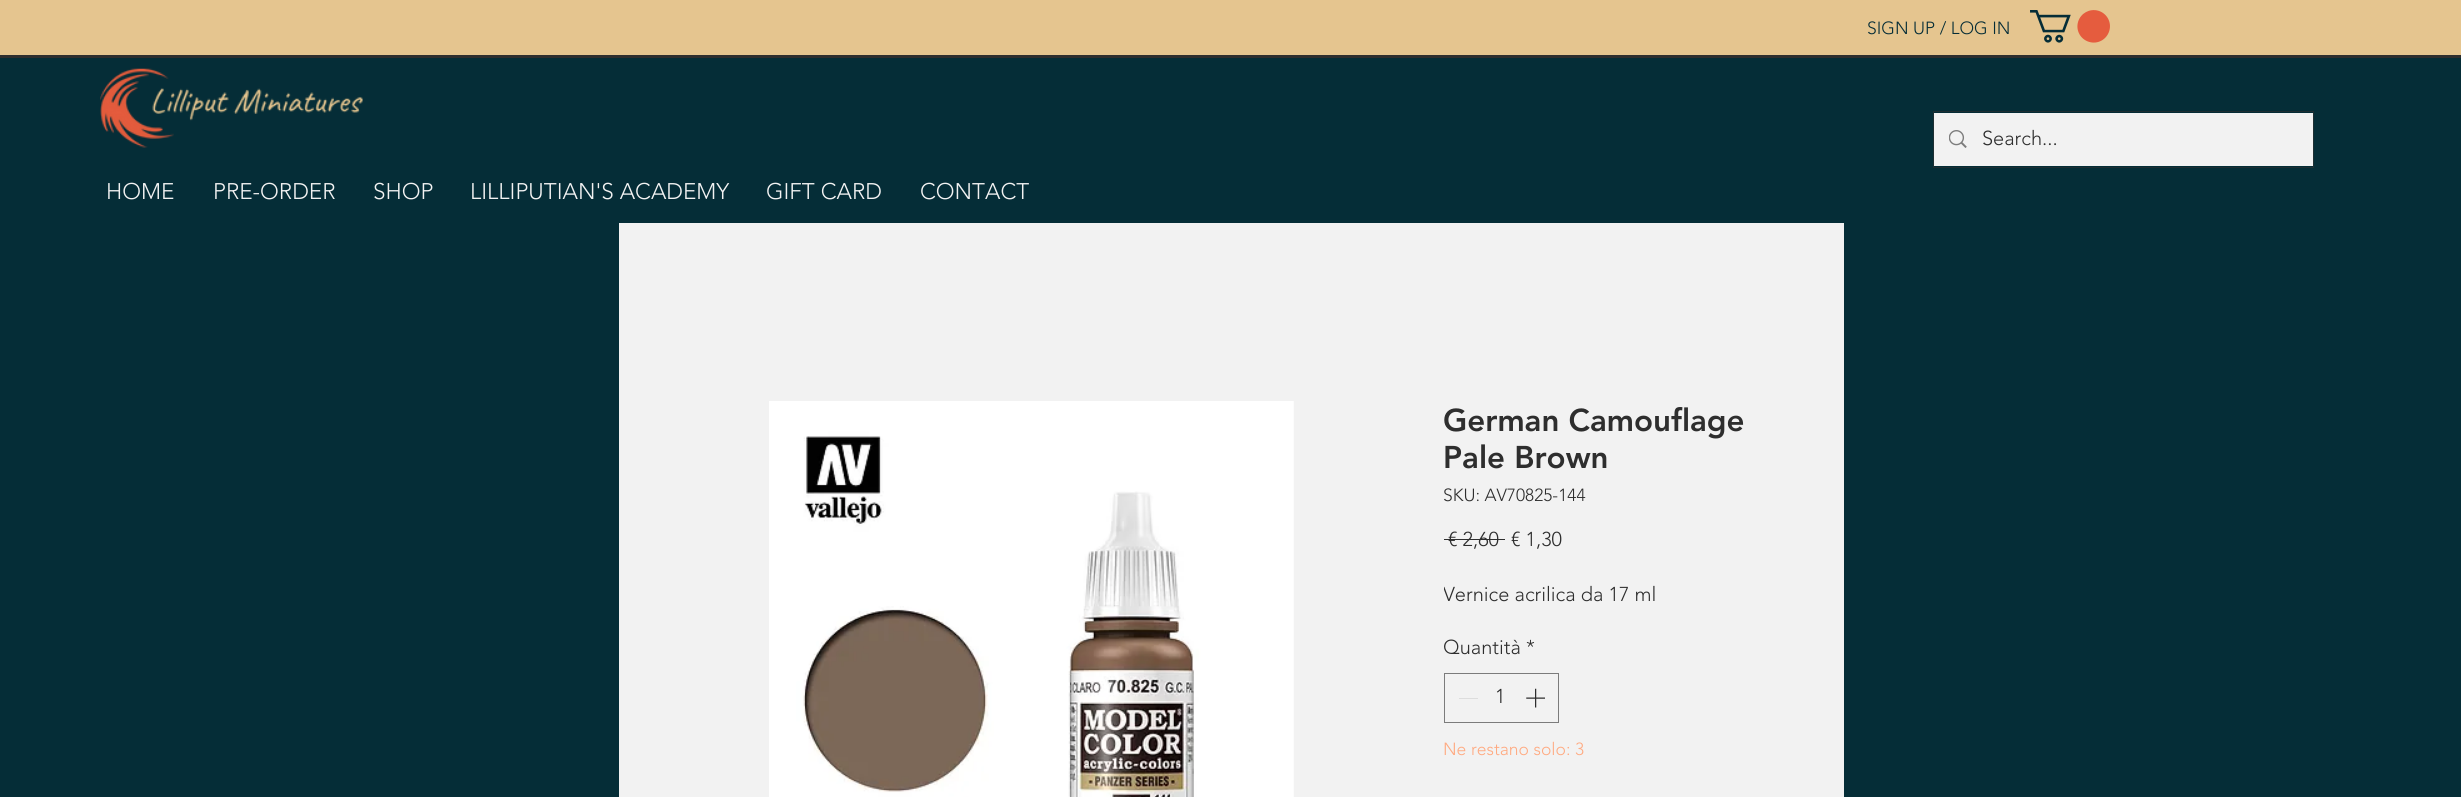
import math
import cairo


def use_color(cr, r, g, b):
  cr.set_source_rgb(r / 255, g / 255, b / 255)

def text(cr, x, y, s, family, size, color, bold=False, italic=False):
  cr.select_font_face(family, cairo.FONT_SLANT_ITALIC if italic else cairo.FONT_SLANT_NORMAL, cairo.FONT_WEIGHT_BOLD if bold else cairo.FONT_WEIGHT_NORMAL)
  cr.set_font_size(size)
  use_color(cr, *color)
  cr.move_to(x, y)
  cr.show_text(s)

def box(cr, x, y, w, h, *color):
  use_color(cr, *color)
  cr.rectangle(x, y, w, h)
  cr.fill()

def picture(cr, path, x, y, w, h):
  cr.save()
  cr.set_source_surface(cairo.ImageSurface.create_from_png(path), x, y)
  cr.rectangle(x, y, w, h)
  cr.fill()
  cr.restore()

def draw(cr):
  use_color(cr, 5, 45, 55)
  cr.paint()
  box(cr, 0, 0, 2461, 55, 229, 197, 143)
  picture(cr, "img_01.png", 2030, 10, 80, 33)
  box(cr, 0, 55, 2461, 3, 46, 46, 46)
  picture(cr, "img_02.png", 100, 68, 263, 80)
  cr.rectangle(1933.5, 111.5, 380, 56)
  use_color(cr, 30, 46, 50)
  cr.set_line_width(1)
  cr.stroke()
  box(cr, 1934, 113, 379, 53, 242, 242, 242)
  picture(cr, "img_03.png", 1949, 130, 18, 18)
  box(cr, 619, 223, 1225, 574, 242, 242, 242)
  picture(cr, "img_04.png", 769, 401, 525, 396)
  box(cr, 1444, 539, 61, 1, 46, 46, 46)
  cr.rectangle(1444.5, 673.5, 114, 49)
  use_color(cr, 124, 124, 124)
  cr.stroke()
  box(cr, 1459, 698, 19, 1, 221, 221, 221)
  picture(cr, "img_05.png", 1526, 688, 19, 20)
  text(cr, 1867, 34, "SIGN UP / LOG IN", "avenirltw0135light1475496 Light", 17.5, (5, 45, 55))
  text(cr, 1982, 145, "Search...", "avenirltw0135light1475496 Light", 20, (46, 46, 46))
  text(cr, 106, 199, "HOME", "avenirltw0135light1475496 Light", 22.5, (242, 242, 242))
  text(cr, 213, 199, "PRE-ORDER", "avenirltw0135light1475496 Light", 22.5, (242, 242, 242))
  text(cr, 373, 199, "SHOP", "avenirltw0135light1475496 Light", 22.5, (242, 242, 242))
  text(cr, 470, 199, "LILLIPUTIAN'S ACADEMY", "avenirltw0135light1475496 Light", 22.5, (242, 242, 242))
  text(cr, 766, 199, "GIFT CARD", "avenirltw0135light1475496 Light", 22.5, (242, 242, 242))
  text(cr, 920, 199, "CONTACT", "avenirltw0135light1475496 Light", 22.5, (242, 242, 242))
  text(cr, 1443, 431, "German Camouflage", "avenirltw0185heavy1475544 Black", 31.25, (46, 46, 46))
  text(cr, 1443, 468, "Pale Brown", "avenirltw0185heavy1475544 Black", 31.25, (46, 46, 46))
  text(cr, 1443, 501, "SKU: AV70825-144", "avenirltw0135light1475496 Light", 17.5, (46, 46, 46))
  text(cr, 1448, 546, "€ 2,60", "avenirltw0135light1475496 Light", 20, (46, 46, 46))
  text(cr, 1511, 546, "€ 1,30", "avenirltw0135light1475496 Light", 20, (46, 46, 46))
  cr.save()
  cr.rectangle(1444, 580, 212, 30)
  cr.clip()
  text(cr, 1443, 601, "Vernice acrilica da 17 ml", "avenirltw0135light1475496 Light", 20, (46, 46, 46))
  cr.restore()
  text(cr, 1443, 654, "Quantità *", "avenirltw0135light1475496 Light", 20, (46, 46, 46))
  text(cr, 1495, 703, "1", "avenirltw0135light1475496 Light", 20, (46, 46, 46))
  text(cr, 1443, 755, "Ne restano solo: 3", "avenirltw0135light1475496 Light", 17.5, (255, 170, 129))


surface = cairo.ImageSurface(cairo.FORMAT_RGB24, 2461, 797)
cr = cairo.Context(surface)
options = cairo.FontOptions()
options.set_hint_metrics(cairo.HINT_METRICS_OFF)
options.set_hint_style(cairo.HINT_STYLE_NONE)
cr.set_font_options(options)
cr.set_miter_limit(4)
draw(cr)
surface.write_to_png("out.png")
